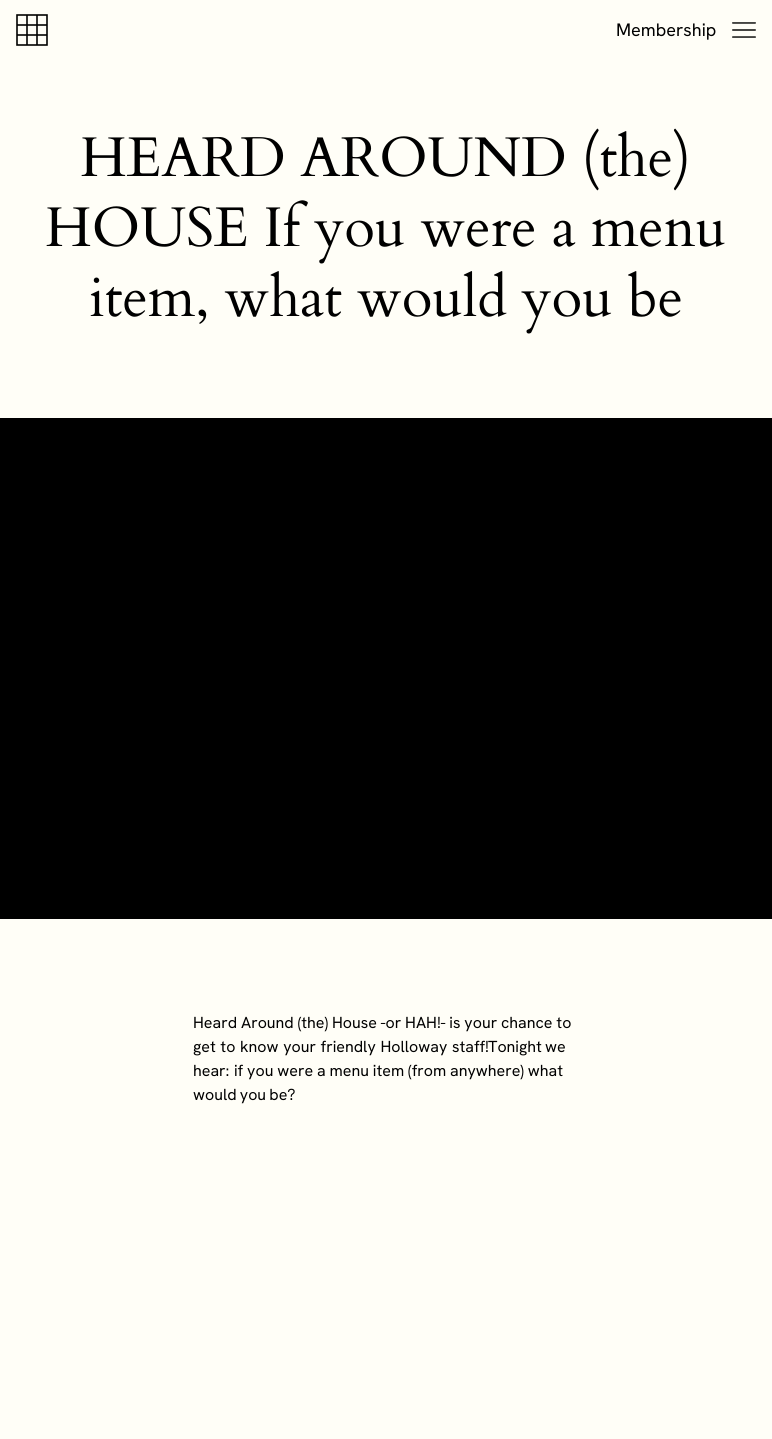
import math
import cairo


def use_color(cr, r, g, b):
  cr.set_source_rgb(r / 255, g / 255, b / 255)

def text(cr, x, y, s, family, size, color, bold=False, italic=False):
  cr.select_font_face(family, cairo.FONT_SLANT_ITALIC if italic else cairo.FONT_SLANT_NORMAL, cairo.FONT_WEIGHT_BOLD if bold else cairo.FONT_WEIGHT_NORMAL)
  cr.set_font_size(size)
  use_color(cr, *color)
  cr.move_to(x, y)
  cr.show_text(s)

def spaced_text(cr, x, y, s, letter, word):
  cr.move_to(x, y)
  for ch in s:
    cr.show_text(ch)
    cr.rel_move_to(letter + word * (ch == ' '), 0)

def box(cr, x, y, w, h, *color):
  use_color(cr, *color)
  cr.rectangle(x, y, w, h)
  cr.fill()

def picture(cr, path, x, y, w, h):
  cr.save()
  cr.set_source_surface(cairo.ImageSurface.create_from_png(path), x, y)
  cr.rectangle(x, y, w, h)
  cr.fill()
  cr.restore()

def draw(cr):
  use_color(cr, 255, 254, 247)
  cr.paint()
  box(cr, 26, 15, 2, 30, 51, 51, 49)
  box(cr, 36, 15, 2, 30, 51, 51, 49)
  box(cr, 17, 24, 30, 2, 51, 51, 49)
  box(cr, 26, 24, 2, 2, 10, 10, 10)
  box(cr, 36, 24, 2, 2, 10, 10, 10)
  box(cr, 17, 34, 30, 2, 51, 51, 49)
  box(cr, 26, 34, 2, 2, 10, 10, 10)
  box(cr, 36, 34, 2, 2, 10, 10, 10)
  cr.new_path()
  cr.move_to(47, 15)
  cr.line_to(47, 45)
  cr.line_to(17, 45)
  cr.line_to(17, 15)
  cr.close_path()
  use_color(cr, 0, 0, 0)
  cr.set_line_width(1.6)
  cr.stroke()
  picture(cr, "img_01.png", 732, 22, 24, 16)
  box(cr, 0, 418, 772, 501, 0, 0, 0)
  text(cr, 616, 36, "Membership", "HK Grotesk", 18, (0, 0, 0))
  text(cr, 80, 176, "HEARD AROUND (the)", "Cardo", 56, (0, 0, 0))
  text(cr, 45, 246, "HOUSE If you were a menu", "Cardo", 56, (0, 0, 0))
  text(cr, 89, 316, "item, what would you be", "Cardo", 56, (0, 0, 0))
  cr.select_font_face("HK Grotesk")
  cr.set_font_size(16)
  spaced_text(cr, 193, 1028, "Heard Around (the) House -or HAH!- is your chance to", 0, -0.25)
  spaced_text(cr, 193, 1052, "get to know your friendly Holloway staff!", 0, 0.5)
  spaced_text(cr, 488, 1052, "Tonight we", 0, -1)
  text(cr, 193, 1076, "hear:", "HK Grotesk", 16, (0, 0, 0))
  spaced_text(cr, 234, 1076, "if you were a menu item (from anywhere) what", 0, -0.25)
  spaced_text(cr, 193, 1100, "would you be?", 0, -1)


surface = cairo.ImageSurface(cairo.FORMAT_RGB24, 772, 1439)
cr = cairo.Context(surface)
options = cairo.FontOptions()
options.set_hint_metrics(cairo.HINT_METRICS_OFF)
options.set_hint_style(cairo.HINT_STYLE_NONE)
cr.set_font_options(options)
cr.set_miter_limit(4)
draw(cr)
surface.write_to_png("out.png")
